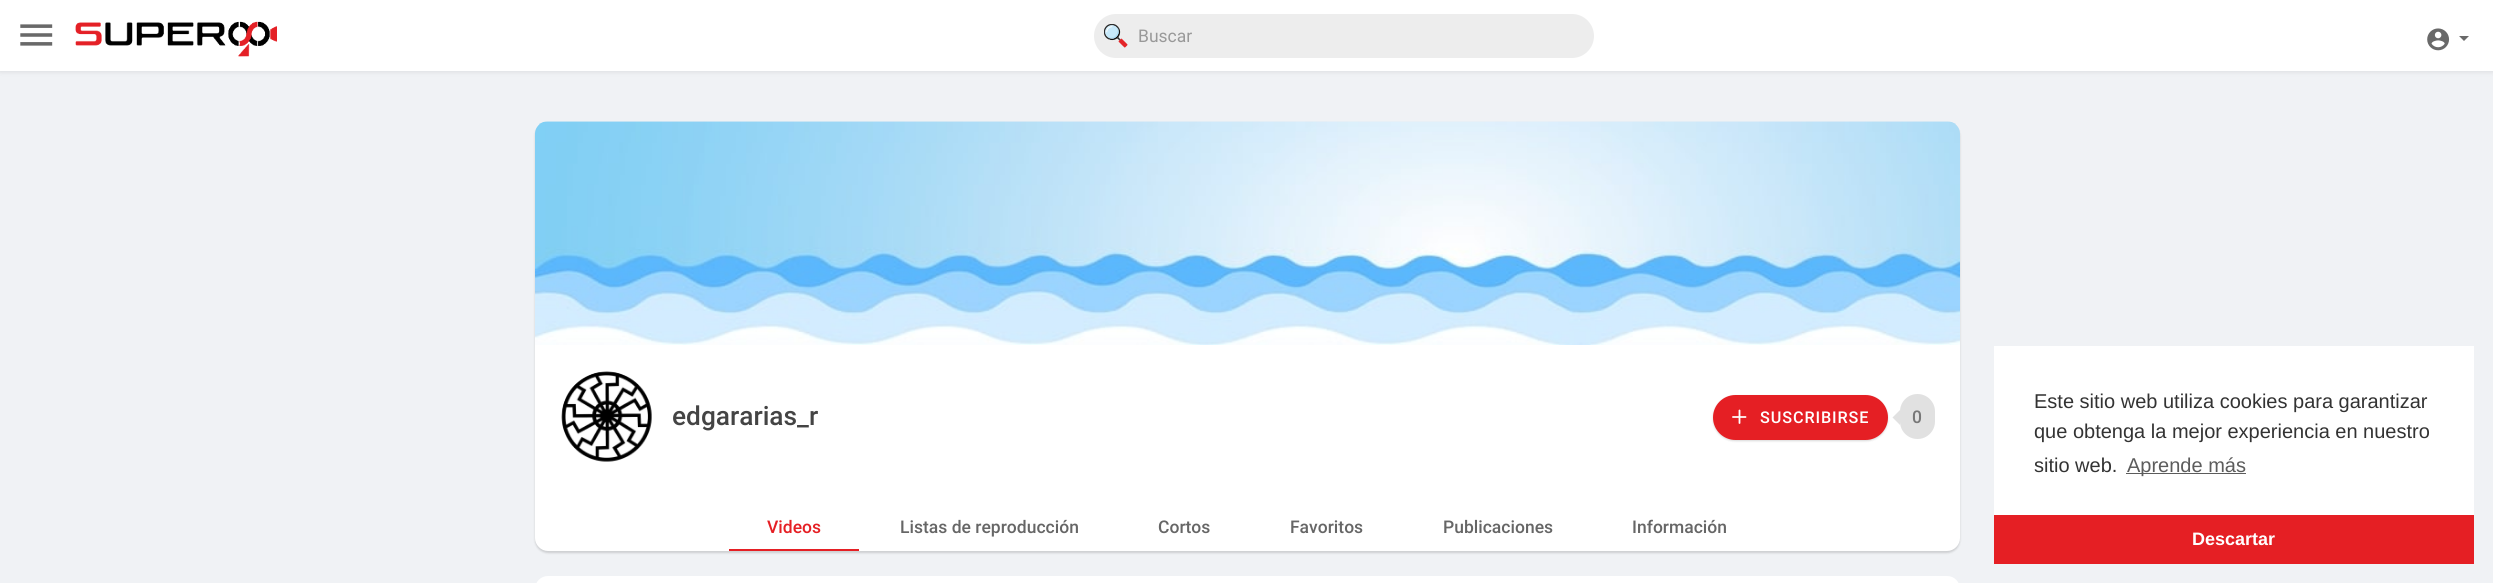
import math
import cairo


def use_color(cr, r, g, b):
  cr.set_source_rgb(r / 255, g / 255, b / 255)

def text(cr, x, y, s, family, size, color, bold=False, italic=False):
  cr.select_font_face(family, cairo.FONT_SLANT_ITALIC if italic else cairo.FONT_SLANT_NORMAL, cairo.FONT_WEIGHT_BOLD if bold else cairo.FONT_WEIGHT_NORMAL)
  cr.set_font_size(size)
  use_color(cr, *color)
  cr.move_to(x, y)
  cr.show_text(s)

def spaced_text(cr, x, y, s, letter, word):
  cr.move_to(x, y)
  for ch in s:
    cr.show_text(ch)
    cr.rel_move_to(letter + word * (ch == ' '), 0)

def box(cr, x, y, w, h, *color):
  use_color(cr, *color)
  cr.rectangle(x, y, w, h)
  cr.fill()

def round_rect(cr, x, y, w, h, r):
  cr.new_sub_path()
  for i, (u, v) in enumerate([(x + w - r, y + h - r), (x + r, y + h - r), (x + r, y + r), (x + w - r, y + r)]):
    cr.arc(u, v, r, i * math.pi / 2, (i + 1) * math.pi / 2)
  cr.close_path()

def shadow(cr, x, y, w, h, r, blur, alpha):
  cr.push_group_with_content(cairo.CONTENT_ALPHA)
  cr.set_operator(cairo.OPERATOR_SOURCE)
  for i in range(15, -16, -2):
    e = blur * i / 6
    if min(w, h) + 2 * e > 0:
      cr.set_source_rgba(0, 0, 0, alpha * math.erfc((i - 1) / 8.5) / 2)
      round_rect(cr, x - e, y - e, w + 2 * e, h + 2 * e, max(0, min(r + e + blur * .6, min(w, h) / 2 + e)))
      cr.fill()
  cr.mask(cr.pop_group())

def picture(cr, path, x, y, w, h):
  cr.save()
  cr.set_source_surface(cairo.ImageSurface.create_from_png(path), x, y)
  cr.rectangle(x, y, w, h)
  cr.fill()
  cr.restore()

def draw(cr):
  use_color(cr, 240, 242, 245)
  cr.paint()
  use_color(cr, 0, 0, 0)
  shadow(cr, 0, 0, 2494, 71, 0, 3, 0.12)
  box(cr, 0, 0, 2493, 71, 255, 255, 255)
  picture(cr, "img_01.png", 20, 24, 33, 22)
  picture(cr, "img_02.png", 75, 21, 202, 36)
  use_color(cr, 237, 237, 237)
  round_rect(cr, 1094, 14, 500, 44, 22)
  cr.fill()
  picture(cr, "img_03.png", 1104, 24, 24, 24)
  picture(cr, "img_04.png", 2427, 28, 23, 23)
  use_color(cr, 105, 105, 105)
  cr.new_path()
  cr.move_to(2459, 36)
  cr.line_to(2469, 36)
  cr.line_to(2464, 41)
  cr.close_path()
  cr.fill()
  use_color(cr, 0, 0, 0)
  shadow(cr, 535, 123, 1425, 430, 13, 1, 0.15)
  picture(cr, "img_05.png", 535, 121, 1425, 224)
  box(cr, 535, 345, 1425, 144, 255, 255, 255)
  picture(cr, "img_06.png", 561, 371, 91, 91)
  use_color(cr, 0, 0, 0)
  shadow(cr, 1713, 396, 175, 45, 22.5, 1, 0.15)
  use_color(cr, 229, 31, 36)
  round_rect(cr, 1713, 395, 175, 45, 22.5)
  cr.fill()
  cr.new_path()
  cr.move_to(1739.5, 410.5)
  cr.line_to(1739.5, 423)
  cr.move_to(1733, 417)
  cr.line_to(1745.5, 417)
  use_color(cr, 255, 255, 255)
  cr.set_line_width(1.8)
  cr.set_line_cap(cairo.LINE_CAP_ROUND)
  cr.set_line_join(cairo.LINE_JOIN_ROUND)
  cr.stroke()
  use_color(cr, 225, 225, 225)
  cr.new_path()
  cr.move_to(1900, 410)
  cr.line_to(1900, 425)
  cr.line_to(1892.5, 417.5)
  cr.close_path()
  cr.fill()
  round_rect(cr, 1900, 394, 35, 45, 17.5)
  cr.fill()
  use_color(cr, 255, 255, 255)
  cr.new_path()
  cr.move_to(535, 489)
  cr.line_to(1960, 489)
  cr.line_to(1960, 538)
  cr.curve_to(1960, 545, 1954, 551, 1947, 551)
  cr.line_to(548, 551)
  cr.curve_to(541, 551, 535, 545, 535, 538)
  cr.close_path()
  cr.fill()
  box(cr, 729, 549, 130, 2, 229, 31, 36)
  use_color(cr, 255, 255, 255)
  round_rect(cr, 535, 576, 1425, 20, 13)
  cr.fill()
  box(cr, 1994, 346, 480, 169, 255, 255, 255)
  box(cr, 2126, 473, 120, 1, 92, 92, 92)
  box(cr, 1994, 515, 480, 49, 229, 31, 36)
  text(cr, 1138, 42, "Buscar", "Roboto", 17.5, (153, 153, 153))
  text(cr, 672, 425, "edgararias_r", "Roboto Medium", 26.25, (68, 68, 68))
  cr.set_font_size(16.25)
  use_color(cr, 255, 255, 255)
  spaced_text(cr, 1760, 423, "SUSCRIBIRSE", 0.9, 0)
  text(cr, 1912, 423, "0", "Roboto Medium", 17.5, (119, 119, 119))
  text(cr, 767, 533, "Videos", "Roboto Medium", 17.5, (229, 31, 36))
  text(cr, 900, 533, "Listas de reproducción", "Roboto Medium", 17.5, (102, 102, 102))
  text(cr, 1158, 533, "Cortos", "Roboto Medium", 17.5, (102, 102, 102))
  text(cr, 1290, 533, "Favoritos", "Roboto Medium", 17.5, (102, 102, 102))
  text(cr, 1443, 533, "Publicaciones", "Roboto Medium", 17.5, (102, 102, 102))
  text(cr, 1632, 533, "Información", "Roboto Medium", 17.5, (102, 102, 102))
  text(cr, 2034, 408, "Este sitio web utiliza cookies para garantizar", "Liberation Sans", 20, (51, 51, 51))
  text(cr, 2034, 438, "que obtenga la mejor experiencia en nuestro", "Liberation Sans", 20, (51, 51, 51))
  text(cr, 2034, 472, "sitio web.", "Liberation Sans", 20, (51, 51, 51))
  text(cr, 2127, 472, "Aprende más", "Liberation Sans", 20, (92, 92, 92))
  text(cr, 2192, 545, "Descartar", "Liberation Sans", 18, (255, 255, 255), bold=True)


surface = cairo.ImageSurface(cairo.FORMAT_RGB24, 2493, 583)
cr = cairo.Context(surface)
options = cairo.FontOptions()
options.set_hint_metrics(cairo.HINT_METRICS_OFF)
options.set_hint_style(cairo.HINT_STYLE_NONE)
cr.set_font_options(options)
cr.set_miter_limit(4)
draw(cr)
surface.write_to_png("out.png")
